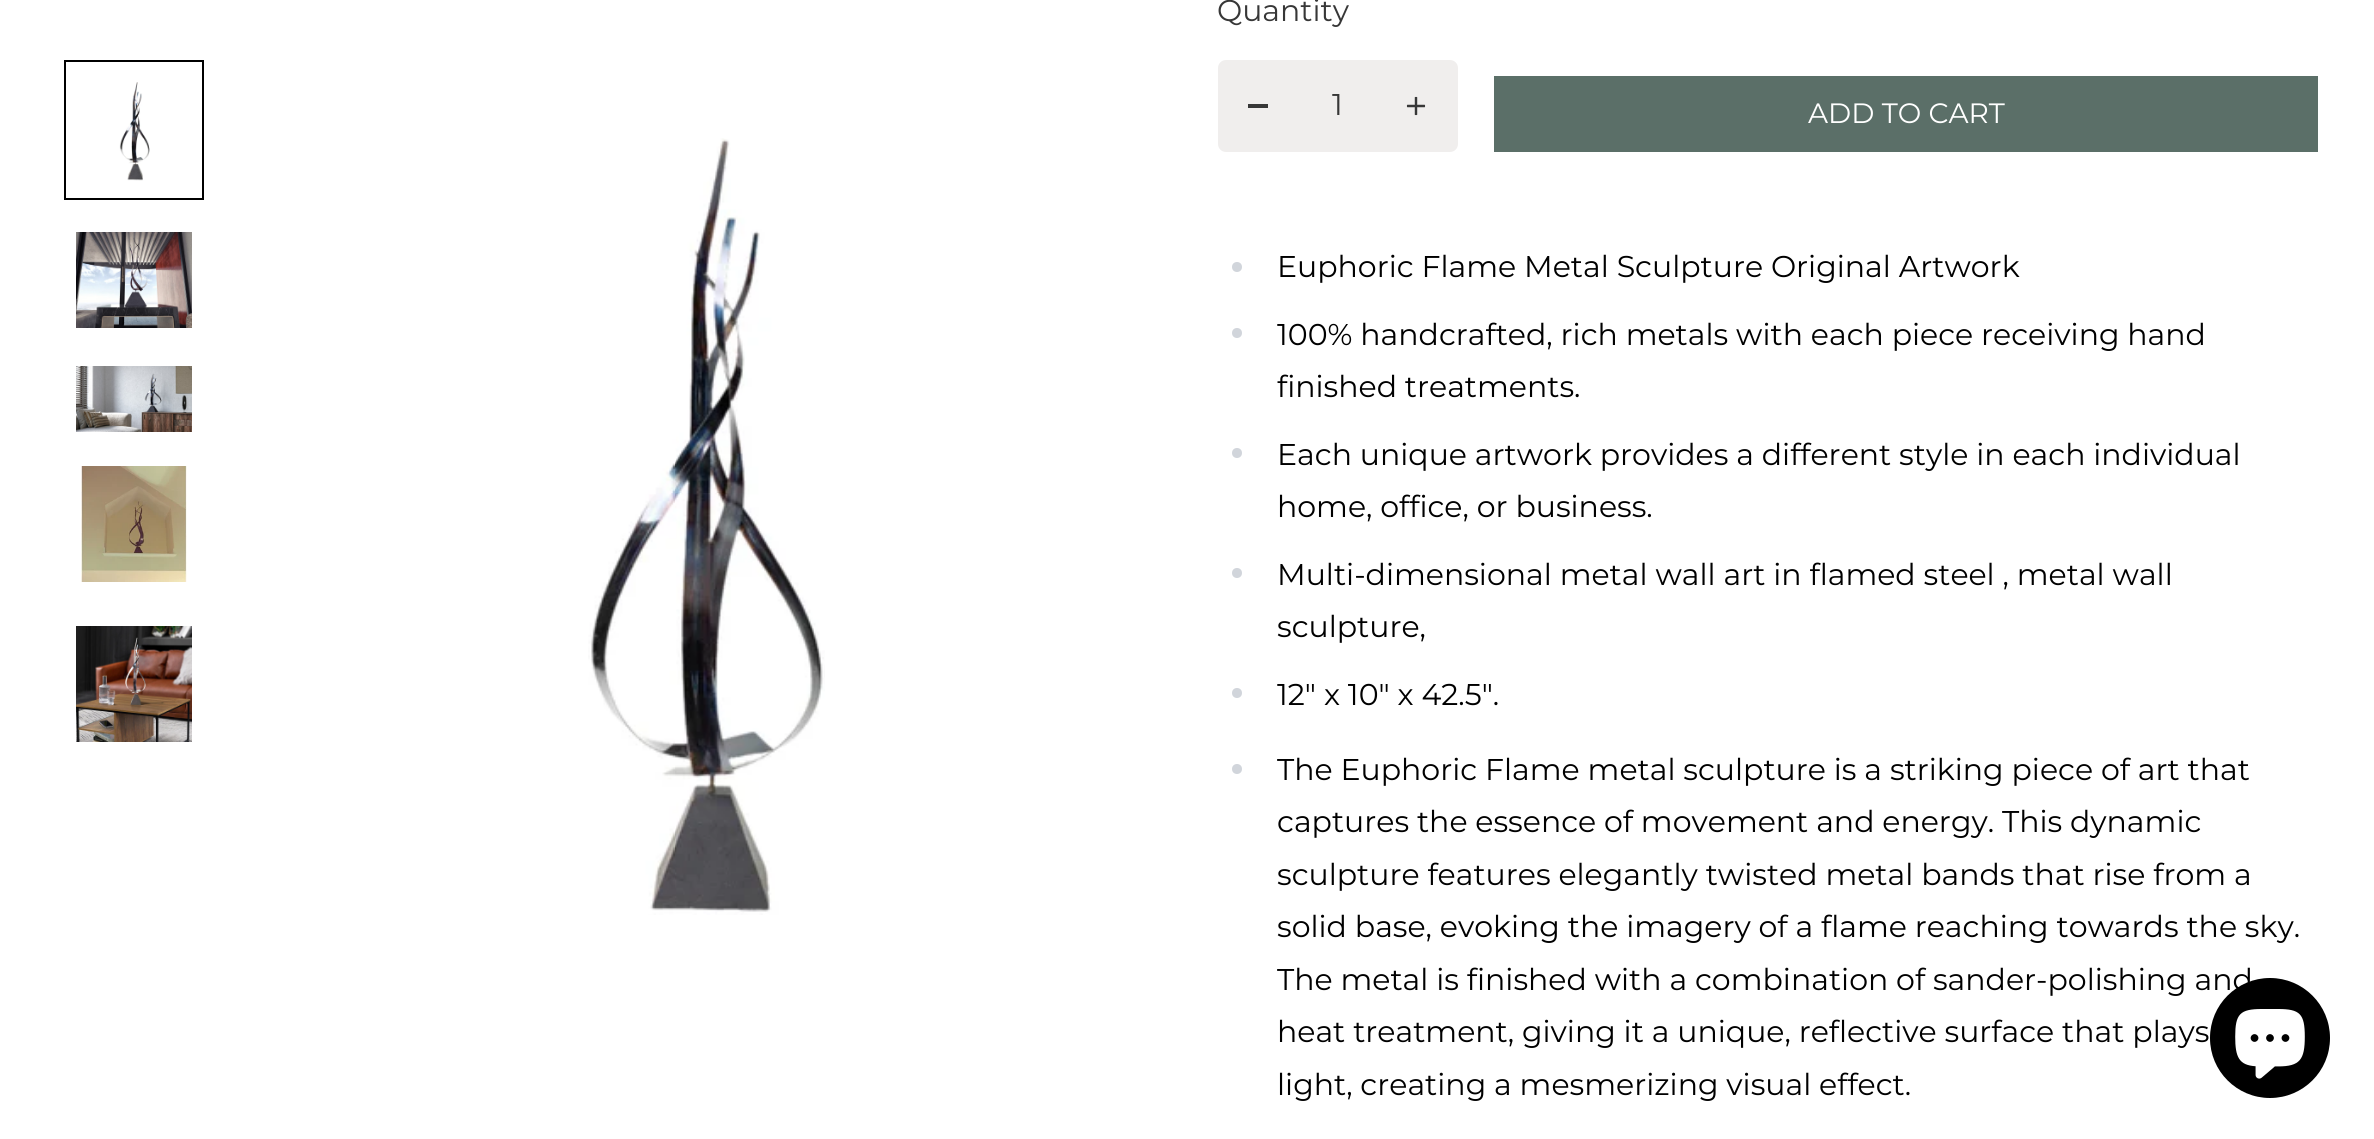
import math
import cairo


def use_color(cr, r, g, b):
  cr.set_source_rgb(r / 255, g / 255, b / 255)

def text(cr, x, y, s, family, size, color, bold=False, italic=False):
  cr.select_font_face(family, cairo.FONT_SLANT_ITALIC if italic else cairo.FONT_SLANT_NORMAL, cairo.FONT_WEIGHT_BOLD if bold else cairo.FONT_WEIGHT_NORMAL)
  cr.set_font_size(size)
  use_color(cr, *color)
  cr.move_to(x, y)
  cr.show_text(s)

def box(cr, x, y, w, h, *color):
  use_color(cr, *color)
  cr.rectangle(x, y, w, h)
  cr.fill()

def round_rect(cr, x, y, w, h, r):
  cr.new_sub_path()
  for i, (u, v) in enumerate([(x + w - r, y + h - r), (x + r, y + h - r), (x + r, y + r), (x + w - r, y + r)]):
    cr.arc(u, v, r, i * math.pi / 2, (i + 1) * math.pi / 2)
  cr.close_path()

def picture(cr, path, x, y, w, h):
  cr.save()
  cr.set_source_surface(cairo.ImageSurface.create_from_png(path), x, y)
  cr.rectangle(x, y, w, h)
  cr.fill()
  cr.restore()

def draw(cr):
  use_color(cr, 255, 255, 255)
  cr.paint()
  cr.rectangle(65, 61, 138, 138)
  use_color(cr, 0, 0, 0)
  cr.stroke()
  picture(cr, "img_01.png", 119, 82, 31, 99)
  picture(cr, "img_02.png", 76, 232, 116, 96)
  picture(cr, "img_03.png", 76, 366, 116, 66)
  picture(cr, "img_04.png", 81, 466, 106, 116)
  picture(cr, "img_05.png", 76, 626, 116, 116)
  picture(cr, "img_06.png", 588, 138, 237, 777)
  use_color(cr, 240, 238, 237)
  round_rect(cr, 1218, 60, 240, 92, 8)
  cr.fill()
  box(cr, 1248, 104, 20, 4, 55, 55, 55)
  picture(cr, "img_07.png", 1406, 96, 20, 20)
  box(cr, 1494, 76, 824, 76, 91, 111, 104)
  use_color(cr, 209, 213, 219)
  cr.arc(1237, 267, 5, 0, 2 * math.pi)
  cr.fill()
  cr.arc(1237, 333, 5, 0, 2 * math.pi)
  cr.fill()
  cr.arc(1237, 453, 5, 0, 2 * math.pi)
  cr.fill()
  cr.arc(1237, 573, 5, 0, 2 * math.pi)
  cr.fill()
  cr.arc(1237, 693, 5, 0, 2 * math.pi)
  cr.fill()
  cr.arc(1237, 769, 5, 0, 2 * math.pi)
  cr.fill()
  use_color(cr, 0, 0, 0)
  cr.arc(2270, 1038, 60, 0, 2 * math.pi)
  cr.fill()
  picture(cr, "img_08.png", 2235, 1009, 70, 70)
  text(cr, 1217, 21, "Quantity", "Montserrat", 30, (55, 55, 55))
  text(cr, 1332, 115, "1", "Montserrat", 30, (55, 55, 55))
  text(cr, 1808, 123, "ADD TO CART", "Montserrat", 28, (255, 255, 255))
  text(cr, 1277, 277, "Euphoric Flame Metal Sculpture Original Artwork", "Montserrat", 30, (0, 0, 0))
  text(cr, 1277, 345, "100% handcrafted, rich metals with each piece receiving hand", "Montserrat", 30, (0, 0, 0))
  text(cr, 1277, 397, "finished treatments.", "Montserrat", 30, (0, 0, 0))
  text(cr, 1277, 465, "Each unique artwork provides a different style in each individual", "Montserrat", 30, (0, 0, 0))
  text(cr, 1277, 517, "home, office, or business.", "Montserrat", 30, (0, 0, 0))
  text(cr, 1277, 585, "Multi-dimensional metal wall art in flamed steel , metal wall", "Montserrat", 30, (0, 0, 0))
  text(cr, 1277, 637, "sculpture,", "Montserrat", 30, (0, 0, 0))
  text(cr, 1277, 705, "12\" x 10\" x 42.5\".", "Montserrat", 30, (0, 0, 0))
  text(cr, 1277, 780, "The Euphoric Flame metal sculpture is a striking piece of art that", "Montserrat", 30, (0, 0, 0))
  text(cr, 1277, 832, "captures the essence of movement and energy. This dynamic", "Montserrat", 30, (0, 0, 0))
  text(cr, 1277, 885, "sculpture features elegantly twisted metal bands that rise from a", "Montserrat", 30, (0, 0, 0))
  text(cr, 1277, 937, "solid base, evoking the imagery of a flame reaching towards the sky.", "Montserrat", 30, (0, 0, 0))
  text(cr, 1277, 990, "The metal is finished with a combination of sander-polishing and", "Montserrat", 30, (0, 0, 0))
  text(cr, 1277, 1042, "heat treatment, giving it a unique, reflective surface that plays", "Montserrat", 30, (0, 0, 0))
  text(cr, 1277, 1095, "light, creating a mesmerizing visual effect.", "Montserrat", 30, (0, 0, 0))


surface = cairo.ImageSurface(cairo.FORMAT_RGB24, 2374, 1139)
cr = cairo.Context(surface)
options = cairo.FontOptions()
options.set_hint_metrics(cairo.HINT_METRICS_OFF)
options.set_hint_style(cairo.HINT_STYLE_NONE)
cr.set_font_options(options)
cr.set_miter_limit(4)
draw(cr)
surface.write_to_png("out.png")
